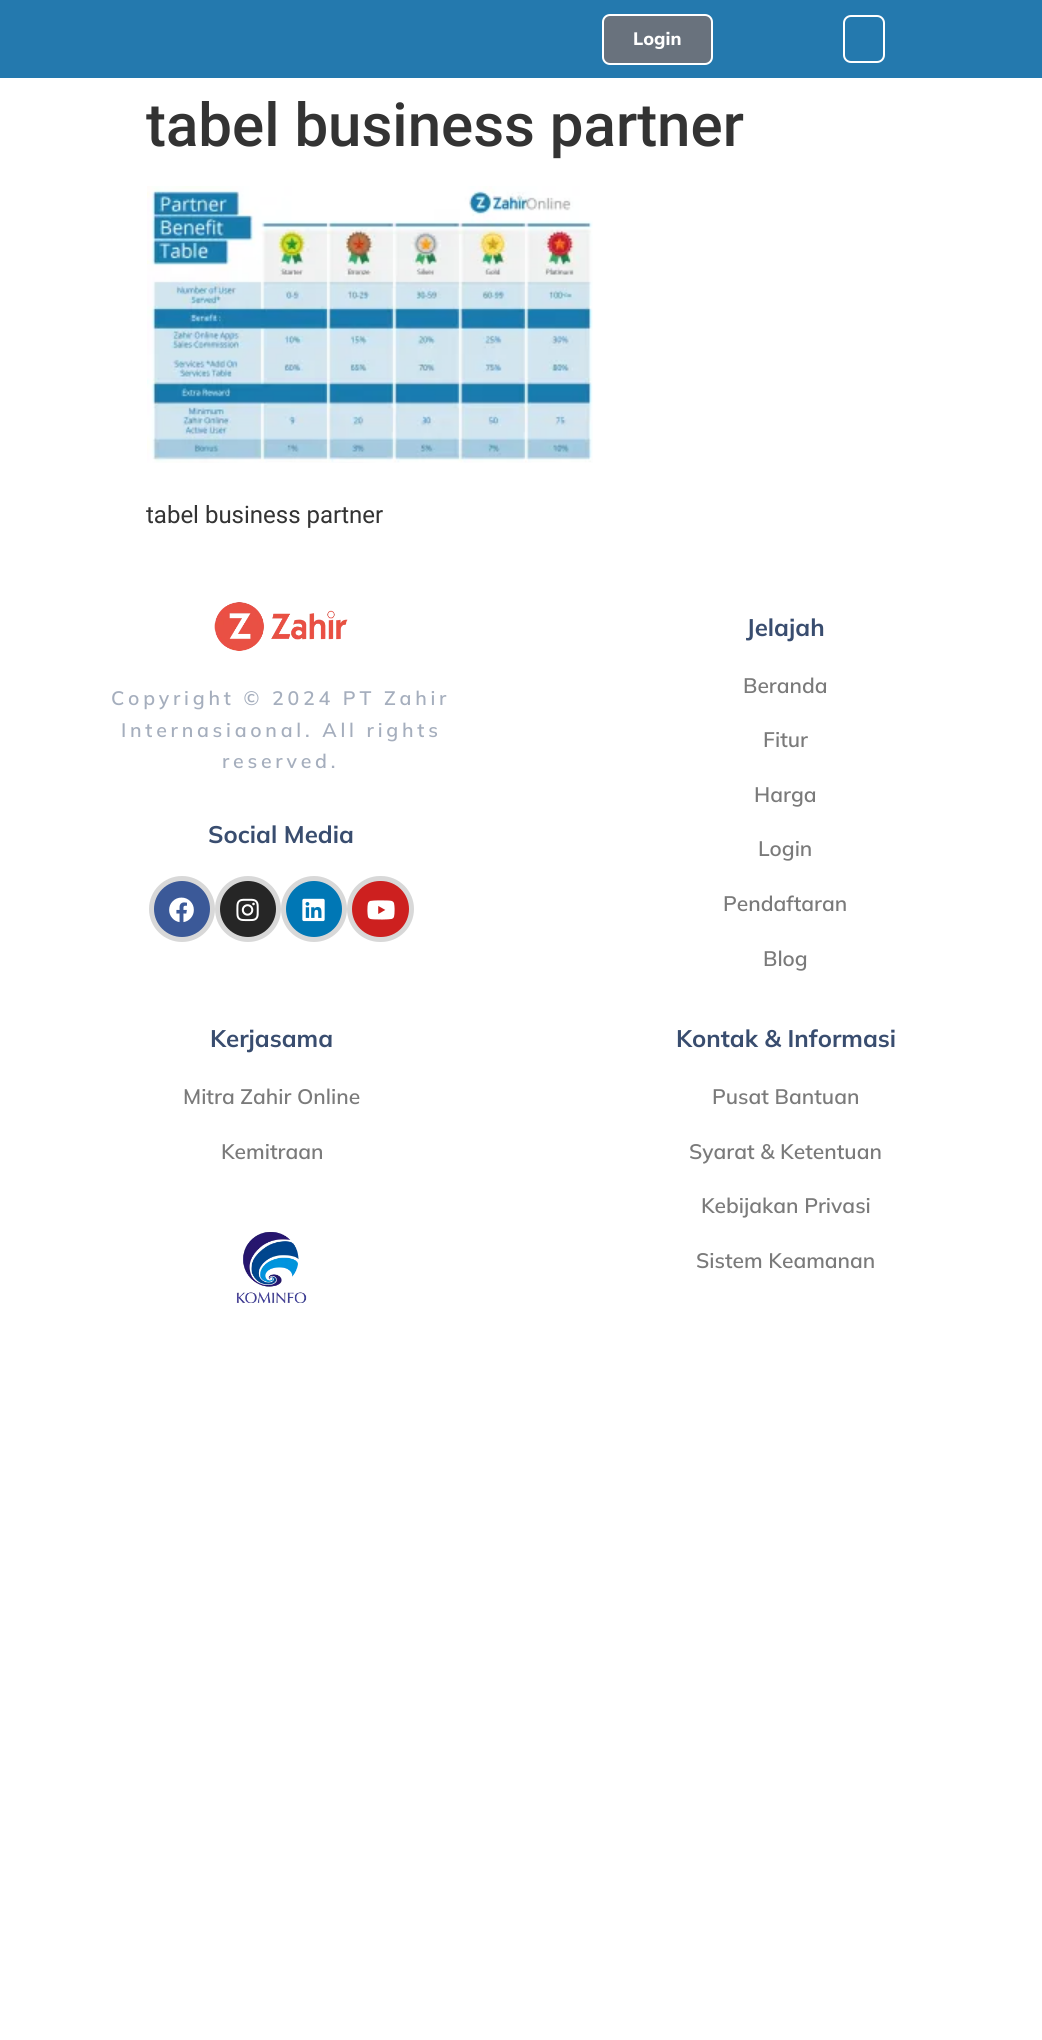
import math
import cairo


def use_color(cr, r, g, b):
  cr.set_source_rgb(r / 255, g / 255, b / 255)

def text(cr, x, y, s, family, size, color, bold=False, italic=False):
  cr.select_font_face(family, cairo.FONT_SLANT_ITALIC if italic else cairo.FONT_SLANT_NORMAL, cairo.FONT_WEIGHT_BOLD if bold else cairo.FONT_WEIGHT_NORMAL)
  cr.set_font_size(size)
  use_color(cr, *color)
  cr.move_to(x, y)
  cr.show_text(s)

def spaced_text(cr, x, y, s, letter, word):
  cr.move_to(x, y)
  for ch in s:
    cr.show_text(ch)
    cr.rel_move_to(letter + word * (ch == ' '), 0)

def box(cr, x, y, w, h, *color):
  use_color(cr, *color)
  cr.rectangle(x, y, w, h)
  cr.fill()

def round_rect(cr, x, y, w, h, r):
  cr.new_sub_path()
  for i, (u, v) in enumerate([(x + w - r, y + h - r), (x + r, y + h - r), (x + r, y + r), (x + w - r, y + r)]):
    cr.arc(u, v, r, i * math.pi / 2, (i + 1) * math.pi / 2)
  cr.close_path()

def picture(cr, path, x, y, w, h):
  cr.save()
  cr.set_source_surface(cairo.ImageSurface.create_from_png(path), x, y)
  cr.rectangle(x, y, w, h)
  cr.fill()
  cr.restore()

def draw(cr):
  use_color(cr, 255, 255, 255)
  cr.paint()
  box(cr, 0, 0, 1042, 78, 36, 121, 174)
  use_color(cr, 105, 114, 125)
  round_rect(cr, 603, 15, 109, 49, 7)
  cr.fill_preserve()
  use_color(cr, 255, 255, 255)
  cr.stroke()
  round_rect(cr, 844, 16, 40, 46, 7)
  cr.stroke()
  picture(cr, "img_01.png", 147, 186, 446, 277)
  picture(cr, "img_02.png", 214, 602, 134, 49)
  use_color(cr, 59, 89, 152)
  cr.arc(182, 909, 30.5, 0, 2 * math.pi)
  cr.fill_preserve()
  use_color(cr, 216, 216, 216)
  cr.set_line_width(5)
  cr.stroke()
  picture(cr, "img_03.png", 169, 897, 25, 26)
  use_color(cr, 38, 38, 38)
  cr.arc(248, 909, 30.5, 0, 2 * math.pi)
  cr.fill_preserve()
  use_color(cr, 216, 216, 216)
  cr.stroke()
  picture(cr, "img_04.png", 236, 898, 23, 24)
  use_color(cr, 0, 119, 181)
  cr.arc(314, 909, 30.5, 0, 2 * math.pi)
  cr.fill_preserve()
  use_color(cr, 216, 216, 216)
  cr.stroke()
  picture(cr, "img_05.png", 302, 898, 23, 24)
  use_color(cr, 205, 32, 31)
  round_rect(cr, 349.5, 878.5, 62, 61, 30.5)
  cr.fill_preserve()
  use_color(cr, 216, 216, 216)
  cr.stroke()
  picture(cr, "img_06.png", 367, 900, 28, 20)
  picture(cr, "img_07.png", 236, 1232, 71, 71)
  text(cr, 633, 45, "Login", "Mulish ExtraLight", 18, (255, 255, 255))
  text(cr, 146, 146, "tabel business partner", "Roboto Medium", 60, (51, 51, 51))
  text(cr, 146, 523, "tabel business partner", "Roboto", 24, (51, 51, 51))
  cr.select_font_face("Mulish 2 ExtraLight")
  cr.set_font_size(19.5)
  use_color(cr, 165, 174, 189)
  spaced_text(cr, 111, 705, "Copyright © 2024 PT Zahir", 3.75, 0)
  spaced_text(cr, 121, 737, "Internasiaonal. All rights", 3.75, 0)
  spaced_text(cr, 222, 768, "reserved.", 3.75, 0)
  text(cr, 208, 843, "Social Media", "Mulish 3 ExtraLight", 24, (57, 77, 111))
  text(cr, 746, 636, "Jelajah", "Mulish 3 ExtraLight", 24, (57, 77, 111))
  text(cr, 743, 693, "Beranda", "Mulish 2 ExtraLight", 21, (122, 122, 122))
  text(cr, 763, 747, "Fitur", "Mulish 2 ExtraLight", 21, (122, 122, 122))
  text(cr, 754, 802, "Harga", "Mulish 2 ExtraLight", 21, (122, 122, 122))
  text(cr, 758, 856, "Login", "Mulish 2 ExtraLight", 21, (122, 122, 122))
  text(cr, 723, 911, "Pendaftaran", "Mulish 2 ExtraLight", 21, (122, 122, 122))
  text(cr, 763, 966, "Blog", "Mulish 2 ExtraLight", 21, (122, 122, 122))
  text(cr, 210, 1047, "Kerjasama", "Mulish 3 ExtraLight", 24, (57, 77, 111))
  text(cr, 183, 1104, "Mitra Zahir Online", "Mulish 2 ExtraLight", 21, (122, 122, 122))
  text(cr, 221, 1159, "Kemitraan", "Mulish 2 ExtraLight", 21, (122, 122, 122))
  text(cr, 676, 1047, "Kontak & Informasi", "Mulish 3 ExtraLight", 24, (57, 77, 111))
  text(cr, 712, 1104, "Pusat Bantuan", "Mulish 2 ExtraLight", 21, (122, 122, 122))
  text(cr, 689, 1159, "Syarat & Ketentuan", "Mulish 2 ExtraLight", 21, (122, 122, 122))
  text(cr, 701, 1213, "Kebijakan Privasi", "Mulish 2 ExtraLight", 21, (122, 122, 122))
  text(cr, 696, 1268, "Sistem Keamanan", "Mulish 2 ExtraLight", 21, (122, 122, 122))


surface = cairo.ImageSurface(cairo.FORMAT_RGB24, 1042, 2040)
cr = cairo.Context(surface)
options = cairo.FontOptions()
options.set_hint_metrics(cairo.HINT_METRICS_OFF)
options.set_hint_style(cairo.HINT_STYLE_NONE)
cr.set_font_options(options)
cr.set_miter_limit(4)
draw(cr)
surface.write_to_png("out.png")
